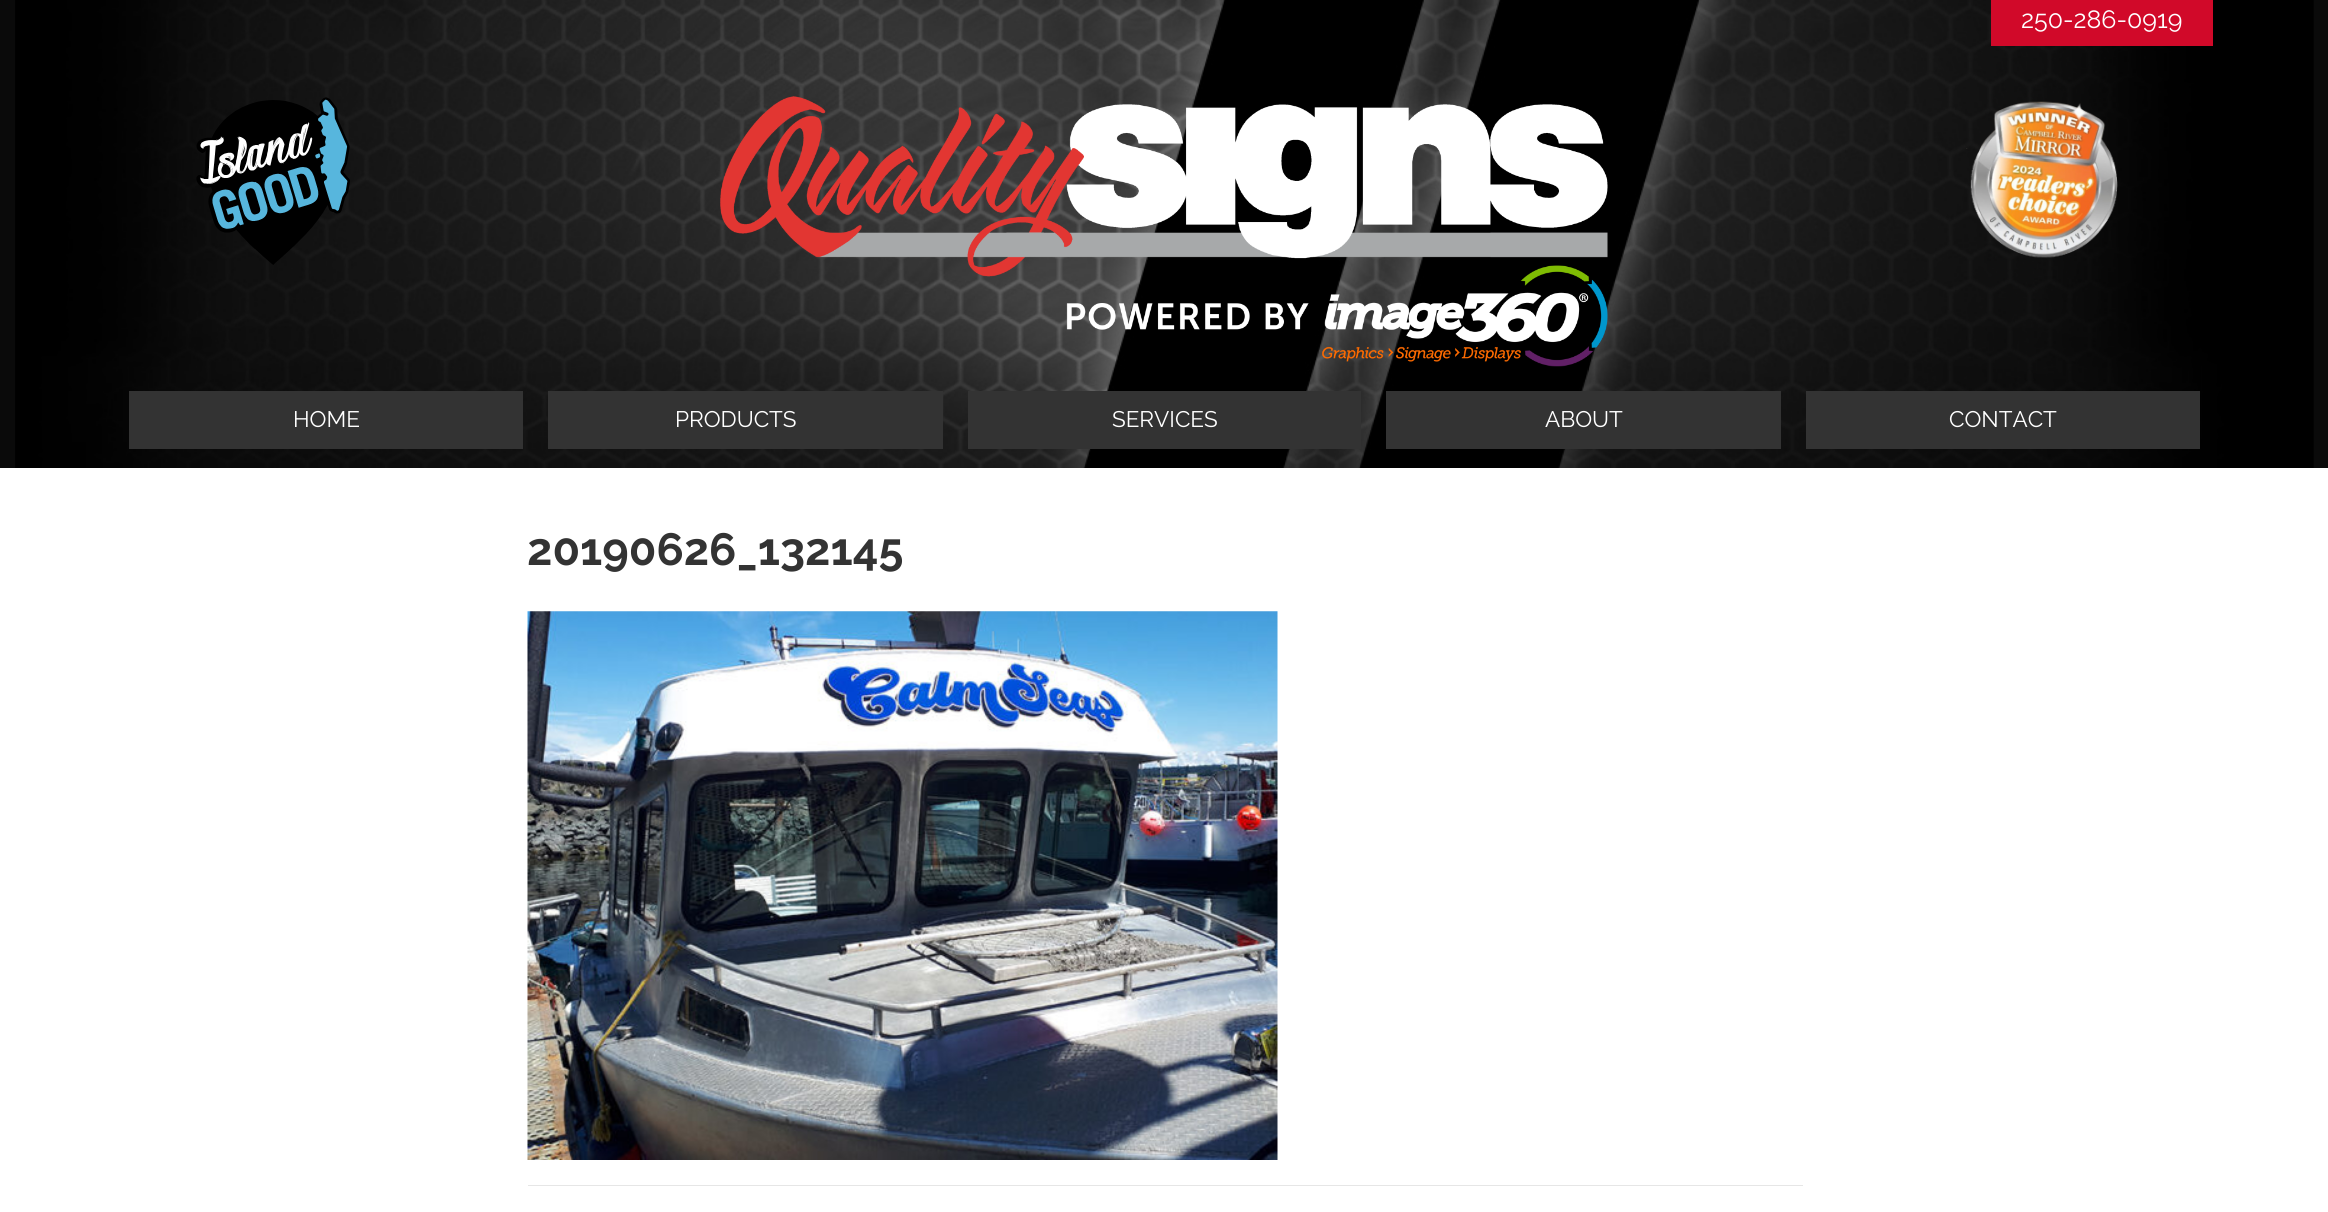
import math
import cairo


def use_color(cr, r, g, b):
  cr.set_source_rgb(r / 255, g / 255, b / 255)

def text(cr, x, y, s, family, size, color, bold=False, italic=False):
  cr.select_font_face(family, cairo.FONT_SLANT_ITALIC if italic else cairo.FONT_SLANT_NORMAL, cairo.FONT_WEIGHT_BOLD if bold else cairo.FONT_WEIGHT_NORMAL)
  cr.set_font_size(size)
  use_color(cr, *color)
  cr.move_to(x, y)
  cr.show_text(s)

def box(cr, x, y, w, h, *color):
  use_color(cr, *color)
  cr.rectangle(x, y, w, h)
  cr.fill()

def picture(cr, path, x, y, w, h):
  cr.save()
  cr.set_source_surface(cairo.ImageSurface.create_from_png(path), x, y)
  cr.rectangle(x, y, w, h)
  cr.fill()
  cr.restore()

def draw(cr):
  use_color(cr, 10, 10, 10)
  cr.paint()
  picture(cr, "img_01.png", 15, 0, 2299, 468)
  box(cr, 1991, 0, 222, 46, 209, 9, 41)
  picture(cr, "img_02.png", 196, 97, 154, 168)
  picture(cr, "img_03.png", 720, 96, 888, 271)
  picture(cr, "img_04.png", 1966, 101, 152, 157)
  box(cr, 129, 391, 394, 58, 51, 51, 51)
  box(cr, 548, 391, 395, 58, 51, 51, 51)
  box(cr, 968, 391, 393, 58, 51, 51, 51)
  box(cr, 1386, 391, 395, 58, 51, 51, 51)
  box(cr, 1806, 391, 394, 58, 51, 51, 51)
  box(cr, 0, 468, 2328, 744, 255, 255, 255)
  picture(cr, "img_05.png", 527, 611, 751, 549)
  box(cr, 528, 1185, 1275, 1, 230, 230, 230)
  text(cr, 2021, 28, "250-286-0919", "Raleway", 25, (255, 255, 255))
  text(cr, 293, 427, "HOME", "Raleway", 22.5, (255, 255, 255))
  text(cr, 675, 427, "PRODUCTS", "Raleway", 22.5, (255, 255, 255))
  text(cr, 1112, 427, "SERVICES", "Raleway", 22.5, (255, 255, 255))
  text(cr, 1545, 427, "ABOUT", "Raleway", 22.5, (255, 255, 255))
  text(cr, 1949, 427, "CONTACT", "Raleway", 22.5, (255, 255, 255))
  text(cr, 527, 565, "20190626_132145", "Raleway", 45, (51, 51, 51), bold=True)


surface = cairo.ImageSurface(cairo.FORMAT_RGB24, 2328, 1212)
cr = cairo.Context(surface)
options = cairo.FontOptions()
options.set_hint_metrics(cairo.HINT_METRICS_OFF)
options.set_hint_style(cairo.HINT_STYLE_NONE)
cr.set_font_options(options)
cr.set_miter_limit(4)
draw(cr)
surface.write_to_png("out.png")
